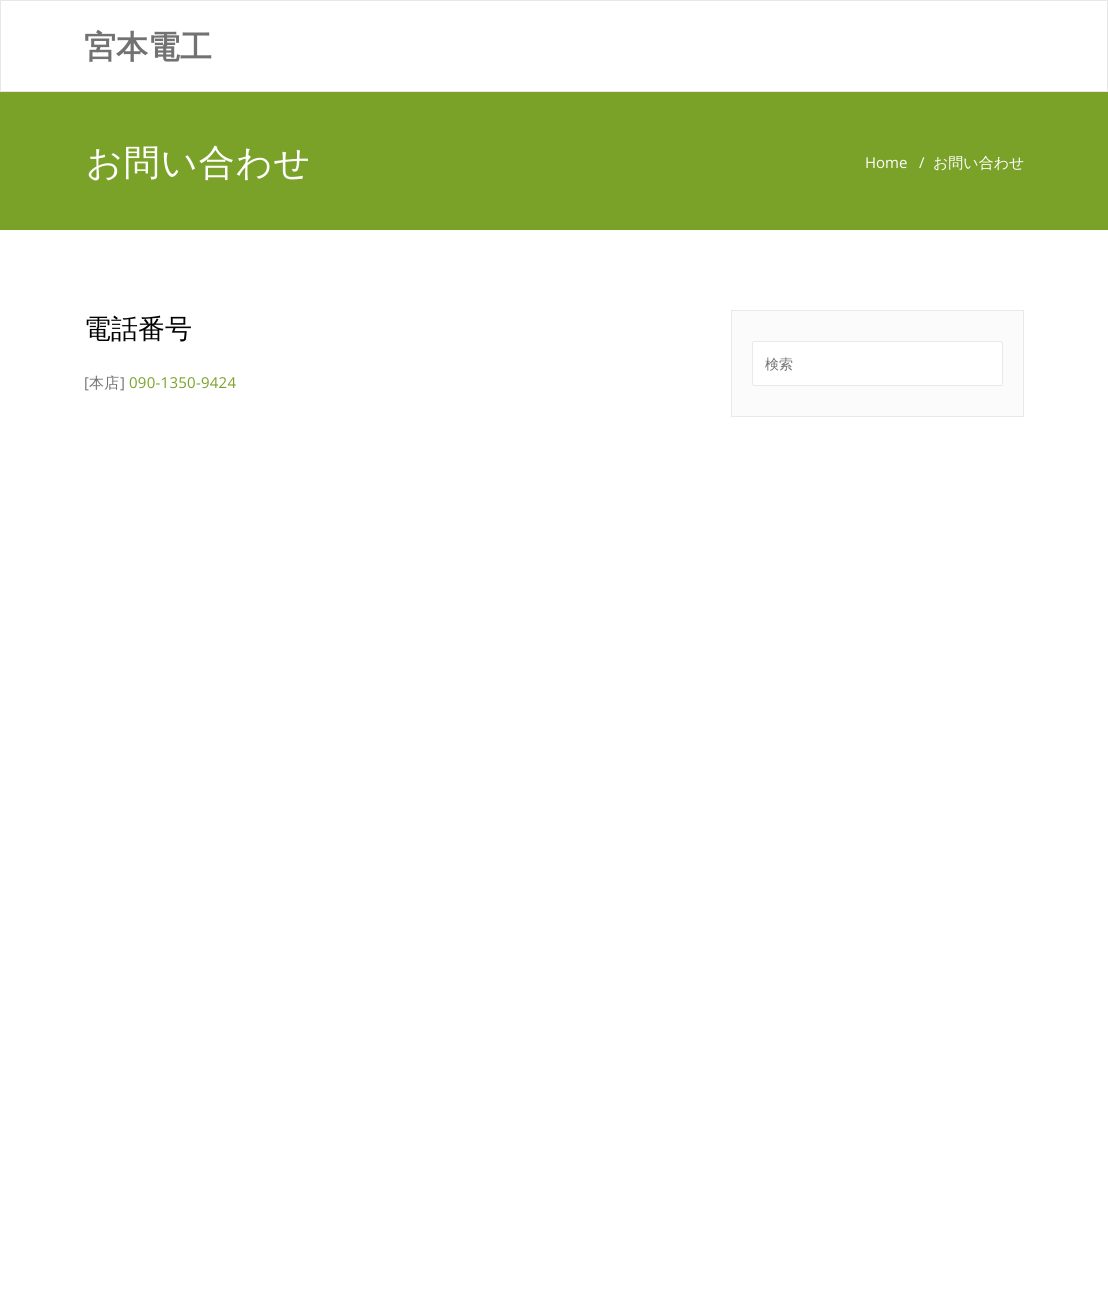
import math
import cairo


def use_color(cr, r, g, b):
  cr.set_source_rgb(r / 255, g / 255, b / 255)

def text(cr, x, y, s, family, size, color, bold=False, italic=False):
  cr.select_font_face(family, cairo.FONT_SLANT_ITALIC if italic else cairo.FONT_SLANT_NORMAL, cairo.FONT_WEIGHT_BOLD if bold else cairo.FONT_WEIGHT_NORMAL)
  cr.set_font_size(size)
  use_color(cr, *color)
  cr.move_to(x, y)
  cr.show_text(s)

def spaced_text(cr, x, y, s, letter, word):
  cr.move_to(x, y)
  for ch in s:
    cr.show_text(ch)
    cr.rel_move_to(letter + word * (ch == ' '), 0)

def box(cr, x, y, w, h, *color):
  use_color(cr, *color)
  cr.rectangle(x, y, w, h)
  cr.fill()

def round_rect(cr, x, y, w, h, r):
  cr.new_sub_path()
  for i, (u, v) in enumerate([(x + w - r, y + h - r), (x + r, y + h - r), (x + r, y + r), (x + w - r, y + r)]):
    cr.arc(u, v, r, i * math.pi / 2, (i + 1) * math.pi / 2)
  cr.close_path()

def draw(cr):
  use_color(cr, 255, 255, 255)
  cr.paint()
  cr.rectangle(0.5, 0.5, 1107, 91)
  use_color(cr, 231, 231, 231)
  cr.set_line_width(1)
  cr.stroke()
  box(cr, 0, 92, 1108, 138, 122, 162, 40)
  use_color(cr, 251, 251, 251)
  cr.rectangle(731.5, 310.5, 292, 106)
  cr.fill_preserve()
  use_color(cr, 233, 233, 233)
  cr.stroke()
  use_color(cr, 255, 255, 255)
  round_rect(cr, 752.5, 341.5, 250, 44, 1.5)
  cr.fill_preserve()
  use_color(cr, 233, 233, 233)
  cr.stroke()
  text(cr, 84, 58, "宮本電工", "WenQuanYi Zen Hei", 32, (114, 114, 114), bold=True)
  cr.select_font_face("WenQuanYi Zen Hei Medium")
  cr.set_font_size(36)
  use_color(cr, 255, 255, 255)
  spaced_text(cr, 86, 175, "お問い合わせ", 1, 0)
  text(cr, 865, 168, "Home", "Open Sans", 15, (255, 255, 255))
  text(cr, 919, 168, "/", "Open Sans", 15, (255, 255, 255))
  text(cr, 933, 168, "お問い合わせ", "WenQuanYi Zen Hei Medium", 15, (255, 255, 255))
  text(cr, 84, 338, "電話番号", "WenQuanYi Zen Hei Medium", 27, (0, 0, 0))
  cr.select_font_face("Open Sans")
  cr.set_font_size(15)
  use_color(cr, 114, 114, 114)
  spaced_text(cr, 84, 388, "[", 0.25, 0)
  cr.select_font_face("WenQuanYi Zen Hei Medium")
  spaced_text(cr, 89, 388, "本店", 0.25, 0)
  cr.select_font_face("Open Sans")
  spaced_text(cr, 120, 388, "]", 0.25, 0)
  use_color(cr, 122, 162, 40)
  spaced_text(cr, 129, 388, "090-1350-9424", 0.25, 0)
  text(cr, 765, 369, "検索", "WenQuanYi Zen Hei Medium", 14, (114, 114, 114))


surface = cairo.ImageSurface(cairo.FORMAT_RGB24, 1108, 1316)
cr = cairo.Context(surface)
options = cairo.FontOptions()
options.set_hint_metrics(cairo.HINT_METRICS_OFF)
options.set_hint_style(cairo.HINT_STYLE_NONE)
cr.set_font_options(options)
cr.set_miter_limit(4)
draw(cr)
surface.write_to_png("out.png")
